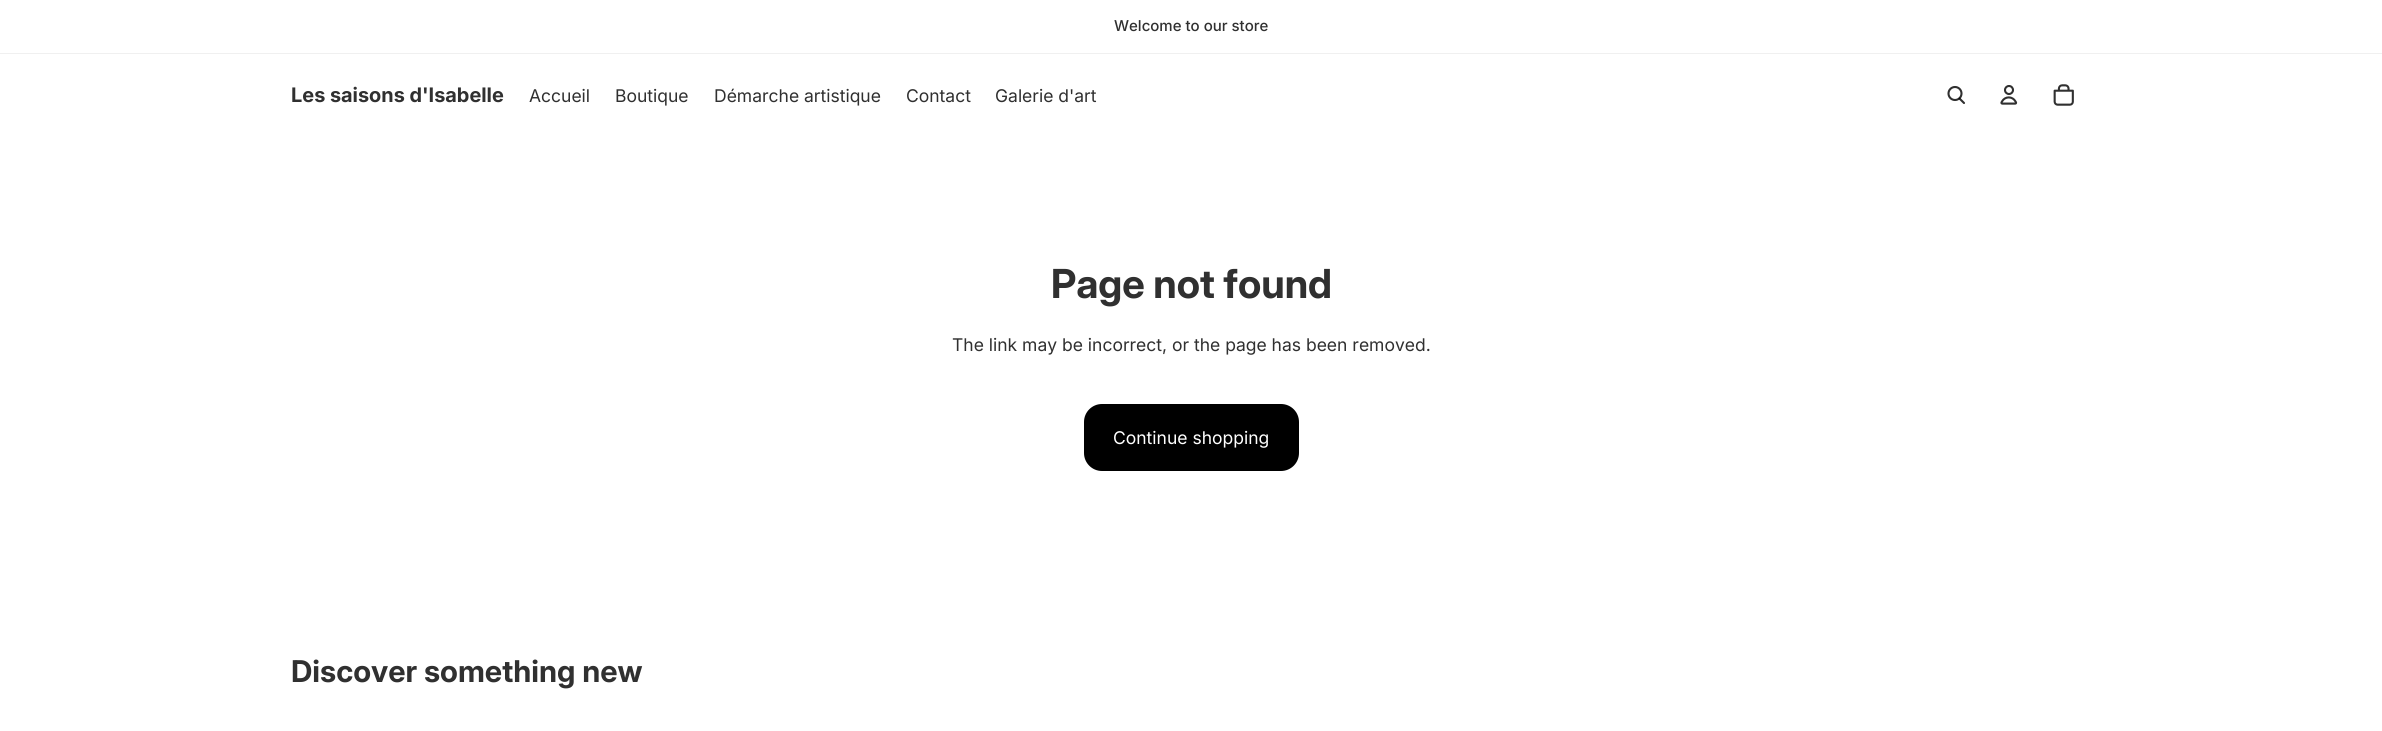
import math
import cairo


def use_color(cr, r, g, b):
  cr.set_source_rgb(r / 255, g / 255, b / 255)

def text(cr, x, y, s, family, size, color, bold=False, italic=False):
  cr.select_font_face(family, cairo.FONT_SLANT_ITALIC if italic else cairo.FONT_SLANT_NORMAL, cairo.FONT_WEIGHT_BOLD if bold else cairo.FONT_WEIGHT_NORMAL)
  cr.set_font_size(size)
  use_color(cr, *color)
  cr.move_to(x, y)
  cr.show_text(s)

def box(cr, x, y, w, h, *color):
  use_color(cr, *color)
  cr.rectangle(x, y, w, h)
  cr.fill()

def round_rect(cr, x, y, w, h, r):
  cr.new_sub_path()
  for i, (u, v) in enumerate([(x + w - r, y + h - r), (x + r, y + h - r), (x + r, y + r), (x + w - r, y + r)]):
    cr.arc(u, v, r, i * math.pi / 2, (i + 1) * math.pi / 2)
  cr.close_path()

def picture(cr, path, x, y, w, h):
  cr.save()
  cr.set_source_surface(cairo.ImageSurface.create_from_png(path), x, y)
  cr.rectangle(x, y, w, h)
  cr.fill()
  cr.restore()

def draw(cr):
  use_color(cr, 255, 255, 255)
  cr.paint()
  box(cr, 0, 53, 2382, 1, 240, 240, 240)
  cr.arc(1955, 93.5, 6.5, 0, 2 * math.pi)
  use_color(cr, 48, 48, 48)
  cr.set_line_width(2.1)
  cr.stroke()
  cr.new_path()
  cr.move_to(1959.5, 98.5)
  cr.line_to(1964, 103)
  cr.set_source_rgba(0, 0, 0, 0.81)
  cr.set_line_cap(cairo.LINE_CAP_ROUND)
  cr.set_line_join(cairo.LINE_JOIN_ROUND)
  cr.stroke()
  picture(cr, "img_01.png", 2000, 85, 18, 20)
  picture(cr, "img_02.png", 2053, 84, 21, 22)
  use_color(cr, 0, 0, 0)
  round_rect(cr, 1084, 404, 215, 67, 18)
  cr.fill()
  text(cr, 1114, 31, "Welcome to our store", "Inter Medium", 15, (48, 48, 48))
  text(cr, 291, 102, "Les saisons d'Isabelle", "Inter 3", 20, (48, 48, 48), bold=True)
  text(cr, 529, 102, "Accueil", "Inter", 17.5, (48, 48, 48))
  text(cr, 615, 102, "Boutique", "Inter", 17.5, (48, 48, 48))
  text(cr, 714, 102, "Démarche artistique", "Inter", 17.5, (48, 48, 48))
  text(cr, 906, 102, "Contact", "Inter", 17.5, (48, 48, 48))
  text(cr, 995, 102, "Galerie d'art", "Inter", 17.5, (48, 48, 48))
  text(cr, 1051, 298, "Page not found", "Inter", 40, (48, 48, 48), bold=True)
  text(cr, 952, 351, "The link may be incorrect, or the page has been removed.", "Inter", 17.5, (48, 48, 48))
  text(cr, 1113, 444, "Continue shopping", "Inter", 17.5, (255, 255, 255))
  text(cr, 291, 682, "Discover something new", "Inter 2", 30, (48, 48, 48), bold=True)


surface = cairo.ImageSurface(cairo.FORMAT_RGB24, 2382, 731)
cr = cairo.Context(surface)
options = cairo.FontOptions()
options.set_hint_metrics(cairo.HINT_METRICS_OFF)
options.set_hint_style(cairo.HINT_STYLE_NONE)
cr.set_font_options(options)
cr.set_miter_limit(4)
draw(cr)
surface.write_to_png("out.png")
